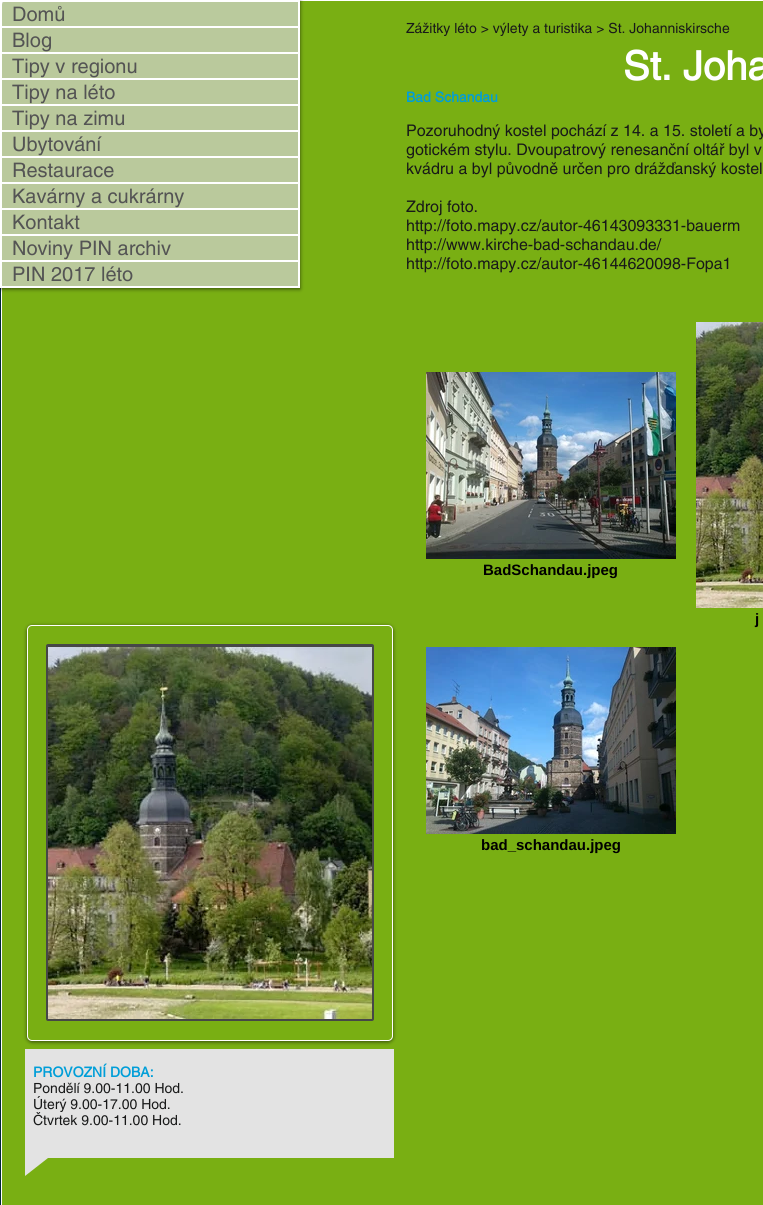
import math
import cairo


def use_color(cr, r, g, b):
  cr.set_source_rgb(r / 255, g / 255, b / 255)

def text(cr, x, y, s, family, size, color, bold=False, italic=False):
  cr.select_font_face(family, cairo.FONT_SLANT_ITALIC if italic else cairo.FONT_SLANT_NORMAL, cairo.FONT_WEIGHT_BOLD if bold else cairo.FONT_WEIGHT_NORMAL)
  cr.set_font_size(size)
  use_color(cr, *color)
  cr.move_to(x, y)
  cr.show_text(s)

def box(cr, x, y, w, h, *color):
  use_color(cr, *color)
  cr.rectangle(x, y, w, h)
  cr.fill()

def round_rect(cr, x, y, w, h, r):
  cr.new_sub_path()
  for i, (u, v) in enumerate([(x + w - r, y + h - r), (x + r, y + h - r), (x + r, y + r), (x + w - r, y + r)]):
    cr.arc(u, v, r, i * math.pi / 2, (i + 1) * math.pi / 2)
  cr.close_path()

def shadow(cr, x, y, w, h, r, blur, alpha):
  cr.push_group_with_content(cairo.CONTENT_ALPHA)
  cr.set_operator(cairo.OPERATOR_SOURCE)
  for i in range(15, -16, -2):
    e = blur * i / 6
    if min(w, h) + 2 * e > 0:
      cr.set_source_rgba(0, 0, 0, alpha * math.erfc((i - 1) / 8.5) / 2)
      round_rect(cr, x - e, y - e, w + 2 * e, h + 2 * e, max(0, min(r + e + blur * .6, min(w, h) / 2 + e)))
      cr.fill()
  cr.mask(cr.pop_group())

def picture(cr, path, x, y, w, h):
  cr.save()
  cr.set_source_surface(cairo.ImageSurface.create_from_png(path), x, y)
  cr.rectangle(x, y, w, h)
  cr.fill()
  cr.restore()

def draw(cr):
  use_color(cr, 255, 255, 255)
  cr.paint()
  cr.rectangle(0.5, 0.5, 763, 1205)
  use_color(cr, 0, 52, 72)
  cr.set_line_width(1)
  cr.stroke()
  use_color(cr, 0, 0, 0)
  shadow(cr, 1, 1, 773, 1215, 5, 2, 0.6)
  box(cr, 2, 1, 761, 1204, 121, 175, 19)
  round_rect(cr, 1.5, 0.5, 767, 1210, 4.5)
  use_color(cr, 255, 255, 255)
  cr.stroke()
  cr.save()
  cr.set_fill_rule(cairo.FILL_RULE_EVEN_ODD)
  cr.new_path()
  cr.move_to(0, 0)
  cr.line_to(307, 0)
  cr.line_to(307, 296)
  cr.line_to(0, 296)
  cr.close_path()
  cr.move_to(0, 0)
  cr.line_to(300, 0)
  cr.line_to(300, 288)
  cr.line_to(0, 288)
  cr.close_path()
  cr.clip()
  use_color(cr, 0, 0, 0)
  shadow(cr, 0, 1, 300, 288, 0, 2, 0.6)
  cr.restore()
  cr.rectangle(1, 1, 298, 286)
  cr.set_line_width(2)
  cr.stroke()
  box(cr, 2, 26, 296, 2, 255, 255, 255)
  cr.set_source_rgba(0.831, 0.831, 0.831, 0.71)
  cr.rectangle(2, 2, 296, 24)
  cr.fill()
  box(cr, 2, 52, 296, 2, 255, 255, 255)
  box(cr, 2, 28, 296, 24, 186, 201, 156)
  box(cr, 2, 78, 296, 2, 255, 255, 255)
  box(cr, 2, 54, 296, 24, 186, 201, 156)
  box(cr, 2, 104, 296, 2, 255, 255, 255)
  box(cr, 2, 80, 296, 24, 186, 201, 156)
  box(cr, 2, 130, 296, 2, 255, 255, 255)
  box(cr, 2, 106, 296, 24, 186, 201, 156)
  box(cr, 2, 156, 296, 2, 255, 255, 255)
  box(cr, 2, 132, 296, 24, 186, 201, 156)
  box(cr, 2, 182, 296, 2, 255, 255, 255)
  box(cr, 2, 158, 296, 24, 186, 201, 156)
  box(cr, 2, 208, 296, 2, 255, 255, 255)
  box(cr, 2, 184, 296, 24, 186, 201, 156)
  box(cr, 2, 234, 296, 2, 255, 255, 255)
  box(cr, 2, 210, 296, 24, 186, 201, 156)
  box(cr, 2, 260, 296, 2, 255, 255, 255)
  box(cr, 2, 236, 296, 24, 186, 201, 156)
  box(cr, 2, 262, 296, 24, 186, 201, 156)
  use_color(cr, 0, 0, 0)
  shadow(cr, 27, 626, 366, 416, 5, 2, 0.6)
  use_color(cr, 121, 175, 19)
  round_rect(cr, 27.5, 625.5, 365, 415, 4.5)
  cr.fill_preserve()
  use_color(cr, 255, 255, 255)
  cr.set_line_width(1)
  cr.stroke()
  use_color(cr, 70, 71, 71)
  round_rect(cr, 47, 645, 326, 375, 1)
  cr.fill_preserve()
  cr.set_line_width(2)
  cr.stroke()
  picture(cr, "img_01.png", 48, 647, 324, 372)
  picture(cr, "img_02.png", 426, 372, 250, 187)
  picture(cr, "img_03.png", 696, 322, 67, 286)
  picture(cr, "img_04.png", 426, 647, 250, 187)
  box(cr, 25, 1049, 369, 109, 227, 227, 227)
  cr.new_path()
  cr.move_to(25, 1158)
  cr.line_to(48, 1158)
  cr.line_to(25, 1176)
  cr.close_path()
  cr.fill()
  text(cr, 12, 21, "Domů", "helvetica", 20, (84, 84, 84))
  text(cr, 12, 47, "Blog", "helvetica", 20, (84, 84, 84))
  text(cr, 12, 73, "Tipy v regionu", "helvetica", 20, (84, 84, 84))
  text(cr, 12, 99, "Tipy na léto", "helvetica", 20, (84, 84, 84))
  text(cr, 12, 125, "Tipy na zimu", "helvetica", 20, (84, 84, 84))
  text(cr, 12, 151, "Ubytování", "helvetica", 20, (84, 84, 84))
  text(cr, 12, 177, "Restaurace", "helvetica", 20, (84, 84, 84))
  text(cr, 12, 203, "Kavárny a cukrárny", "helvetica", 20, (84, 84, 84))
  text(cr, 12, 229, "Kontakt", "helvetica", 20, (84, 84, 84))
  text(cr, 12, 255, "Noviny PIN archiv", "helvetica", 20, (84, 84, 84))
  text(cr, 12, 281, "PIN 2017 léto", "helvetica", 20, (84, 84, 84))
  text(cr, 406, 33, "Zážitky léto > výlety a turistika > St. Johanniskirsche", "helvetica", 14, (24, 25, 25))
  text(cr, 623, 80, "St. Joha", "helvetica", 40, (255, 255, 255), bold=True)
  text(cr, 406, 102, "Bad Schandau", "helvetica", 14, (0, 158, 216), bold=True)
  text(cr, 406, 136, "Pozoruhodný kostel pochází z 14. a 15. století a by", "helvetica", 16, (24, 25, 25))
  text(cr, 406, 155, "gotickém stylu. Dvoupatrový renesanční oltář byl v", "helvetica", 16, (24, 25, 25))
  text(cr, 406, 174, "kvádru a byl původně určen pro drážďanský kostel", "helvetica", 16, (24, 25, 25))
  text(cr, 406, 212, "Zdroj foto.", "helvetica", 16, (24, 25, 25))
  text(cr, 406, 231, "http://foto.mapy.cz/autor-46143093331-bauerm", "helvetica", 16, (24, 25, 25))
  text(cr, 406, 250, "http://www.kirche-bad-schandau.de/", "helvetica", 16, (24, 25, 25))
  text(cr, 406, 269, "http://foto.mapy.cz/autor-46144620098-Fopa1", "helvetica", 16, (24, 25, 25))
  text(cr, 483, 575, "BadSchandau.jpeg", "Liberation Sans", 15, (0, 0, 0), bold=True)
  text(cr, 755, 624, "j", "Liberation Sans", 15, (0, 0, 0), bold=True)
  text(cr, 481, 850, "bad_schandau.jpeg", "Liberation Sans", 15, (0, 0, 0), bold=True)
  text(cr, 33, 1077, "PROVOZNÍ DOBA:", "helvetica", 14, (0, 158, 216), bold=True)
  text(cr, 33, 1093, "Pondělí 9.00-11.00 Hod.", "helvetica", 14, (24, 25, 25))
  text(cr, 33, 1109, "Úterý 9.00-17.00 Hod.", "helvetica", 14, (24, 25, 25))
  text(cr, 33, 1125, "Čtvrtek 9.00-11.00 Hod.", "helvetica", 14, (24, 25, 25))


surface = cairo.ImageSurface(cairo.FORMAT_RGB24, 763, 1205)
cr = cairo.Context(surface)
options = cairo.FontOptions()
options.set_hint_metrics(cairo.HINT_METRICS_OFF)
options.set_hint_style(cairo.HINT_STYLE_NONE)
cr.set_font_options(options)
cr.set_miter_limit(4)
draw(cr)
surface.write_to_png("out.png")
